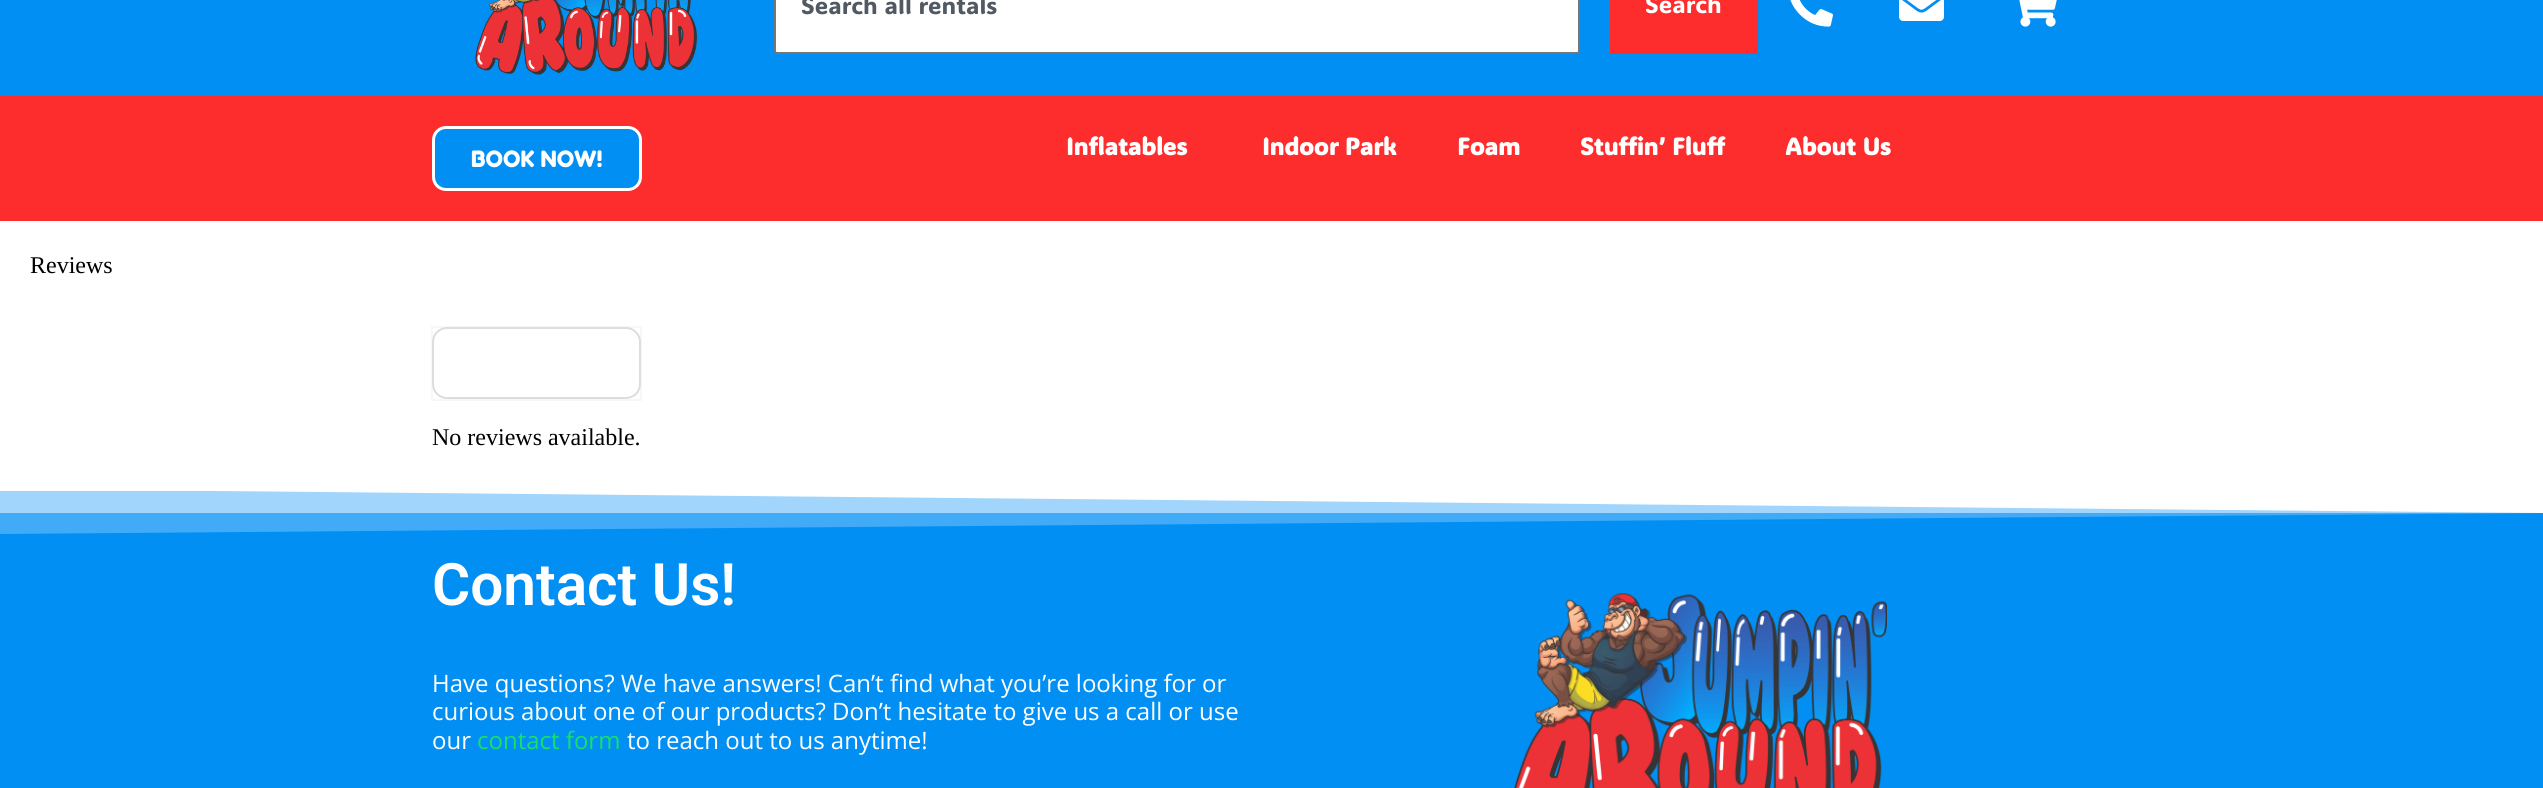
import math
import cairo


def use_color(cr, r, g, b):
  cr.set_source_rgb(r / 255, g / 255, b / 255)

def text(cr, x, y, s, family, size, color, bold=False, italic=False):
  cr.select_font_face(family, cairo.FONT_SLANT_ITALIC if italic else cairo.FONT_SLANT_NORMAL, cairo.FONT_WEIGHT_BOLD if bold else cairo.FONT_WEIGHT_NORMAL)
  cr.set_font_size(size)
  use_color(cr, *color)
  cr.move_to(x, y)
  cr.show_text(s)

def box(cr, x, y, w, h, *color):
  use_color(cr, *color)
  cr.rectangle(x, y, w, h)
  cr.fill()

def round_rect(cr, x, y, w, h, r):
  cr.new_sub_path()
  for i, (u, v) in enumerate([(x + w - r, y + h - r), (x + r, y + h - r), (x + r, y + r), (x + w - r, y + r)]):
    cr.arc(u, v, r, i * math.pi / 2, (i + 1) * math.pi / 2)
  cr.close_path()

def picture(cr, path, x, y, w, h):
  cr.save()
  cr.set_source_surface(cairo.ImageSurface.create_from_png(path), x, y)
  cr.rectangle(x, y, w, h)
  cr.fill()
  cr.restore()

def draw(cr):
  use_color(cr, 255, 255, 255)
  cr.paint()
  box(cr, 0, 0, 2543, 96, 2, 143, 244)
  picture(cr, "img_01.png", 475, 0, 222, 75)
  use_color(cr, 255, 255, 255)
  round_rect(cr, 775, -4, 804, 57, 2)
  cr.fill_preserve()
  use_color(cr, 118, 118, 118)
  cr.stroke()
  box(cr, 1610, 0, 148, 54, 253, 45, 45)
  picture(cr, "img_02.png", 1790, 0, 43, 27)
  picture(cr, "img_03.png", 1899, 0, 45, 21)
  picture(cr, "img_04.png", 2019, 0, 38, 27)
  box(cr, 0, 96, 2543, 125, 253, 45, 45)
  use_color(cr, 2, 143, 244)
  round_rect(cr, 433.5, 127.5, 207, 62, 12.5)
  cr.fill_preserve()
  use_color(cr, 255, 255, 255)
  cr.set_line_width(3)
  cr.stroke()
  cr.rectangle(432, 327, 209, 73)
  cr.set_source_rgba(0.055, 0.247, 0.494, 0.04)
  cr.set_line_width(2)
  cr.stroke()
  use_color(cr, 255, 255, 255)
  round_rect(cr, 433, 328, 207, 70, 14)
  cr.fill_preserve()
  use_color(cr, 221, 221, 221)
  cr.stroke()
  box(cr, 0, 513, 2543, 275, 2, 143, 244)
  box(cr, 0, 491, 2542, 22, 129, 199, 250)
  use_color(cr, 255, 255, 255)
  cr.new_path()
  cr.move_to(-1, 489)
  cr.line_to(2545, 489)
  cr.line_to(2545, 513)
  cr.close_path()
  cr.fill()
  cr.set_source_rgba(1, 1, 1, 0.25)
  cr.new_path()
  cr.move_to(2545, 489)
  cr.line_to(-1, 489)
  cr.line_to(-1, 534)
  cr.line_to(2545, 513)
  cr.close_path()
  cr.fill()
  picture(cr, "img_05.png", 1514, 593, 373, 195)
  text(cr, 801, 14, "Search all rentals", "ADLaM Display", 24, (81, 89, 98))
  text(cr, 1645, 13, "Search", "ADLaM Display", 24, (255, 255, 255))
  text(cr, 1066, 155, "Inflatables", "ADLaM Display", 24, (255, 255, 255), bold=True)
  text(cr, 1262, 155, "Indoor Park", "ADLaM Display", 24, (255, 255, 255), bold=True)
  text(cr, 1457, 155, "Foam", "ADLaM Display", 24, (255, 255, 255), bold=True)
  text(cr, 1580, 155, "Stuffin’ Fluff", "ADLaM Display", 24, (255, 255, 255), bold=True)
  text(cr, 1785, 155, "About Us", "ADLaM Display", 24, (255, 255, 255), bold=True)
  text(cr, 471, 167, "BOOK NOW!", "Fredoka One", 22.5, (255, 255, 255))
  text(cr, 30, 273, "Reviews", "Liberation Serif", 24, (0, 0, 0))
  text(cr, 432, 445, "No reviews available.", "Liberation Serif", 24, (0, 0, 0))
  text(cr, 432, 605, "Contact Us!", "Roboto SemiBold", 58.5, (255, 255, 255))
  text(cr, 432, 692, "Have questions? We have answers! Can’t find what you’re looking for or", "Open Sans", 24, (255, 255, 255))
  text(cr, 432, 720, "curious about one of our products? Don’t hesitate to give us a call or use", "Open Sans", 24, (255, 255, 255))
  text(cr, 432, 749, "our", "Open Sans", 24, (255, 255, 255))
  text(cr, 477, 749, "contact form", "Open Sans", 24, (22, 225, 101))
  text(cr, 627, 749, "to reach out to us anytime!", "Open Sans", 24, (255, 255, 255))


surface = cairo.ImageSurface(cairo.FORMAT_RGB24, 2543, 788)
cr = cairo.Context(surface)
options = cairo.FontOptions()
options.set_hint_metrics(cairo.HINT_METRICS_OFF)
options.set_hint_style(cairo.HINT_STYLE_NONE)
cr.set_font_options(options)
cr.set_miter_limit(4)
draw(cr)
surface.write_to_png("out.png")
